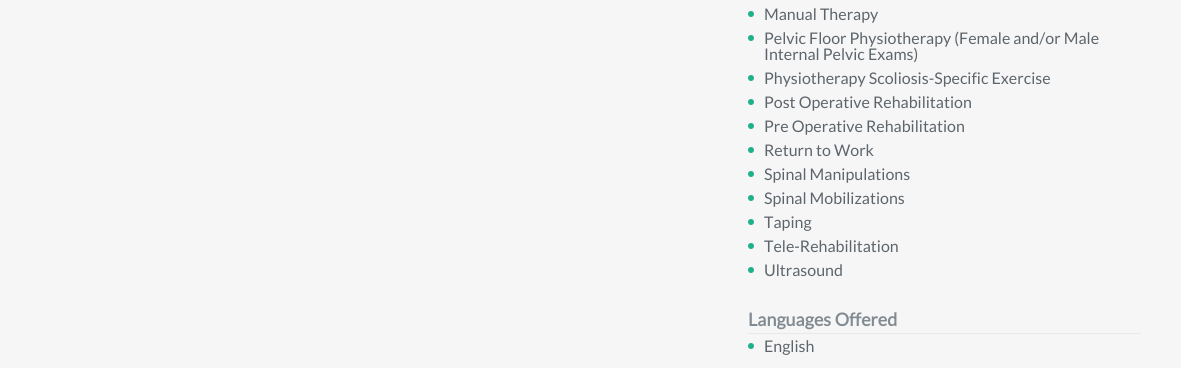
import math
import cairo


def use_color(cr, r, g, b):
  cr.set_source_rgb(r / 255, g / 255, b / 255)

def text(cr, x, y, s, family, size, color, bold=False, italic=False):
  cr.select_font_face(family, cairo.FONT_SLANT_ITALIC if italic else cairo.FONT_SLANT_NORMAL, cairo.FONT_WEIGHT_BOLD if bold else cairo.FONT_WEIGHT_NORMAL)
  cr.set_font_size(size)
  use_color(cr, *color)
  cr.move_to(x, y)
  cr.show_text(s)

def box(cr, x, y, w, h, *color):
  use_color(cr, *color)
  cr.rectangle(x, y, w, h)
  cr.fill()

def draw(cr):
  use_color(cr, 246, 246, 247)
  cr.paint()
  use_color(cr, 31, 177, 138)
  cr.arc(751, 14, 3, 0, 2 * math.pi)
  cr.fill()
  cr.arc(751, 38, 3, 0, 2 * math.pi)
  cr.fill()
  cr.arc(751, 78, 3, 0, 2 * math.pi)
  cr.fill()
  cr.arc(751, 102, 3, 0, 2 * math.pi)
  cr.fill()
  cr.arc(751, 126, 3, 0, 2 * math.pi)
  cr.fill()
  cr.arc(751, 150, 3, 0, 2 * math.pi)
  cr.fill()
  cr.arc(751, 174, 3, 0, 2 * math.pi)
  cr.fill()
  cr.arc(751, 198, 3, 0, 2 * math.pi)
  cr.fill()
  cr.arc(751, 222, 3, 0, 2 * math.pi)
  cr.fill()
  cr.arc(751, 246, 3, 0, 2 * math.pi)
  cr.fill()
  cr.arc(751, 270, 3, 0, 2 * math.pi)
  cr.fill()
  box(cr, 748, 333, 393, 1, 232, 233, 235)
  use_color(cr, 31, 177, 138)
  cr.arc(751, 346, 3, 0, 2 * math.pi)
  cr.fill()
  text(cr, 764, 20, "Manual Therapy", "Lato", 16, (93, 101, 107))
  text(cr, 764, 44, "Pelvic Floor Physiotherapy (Female and/or Male", "Lato", 16, (93, 101, 107))
  text(cr, 764, 60, "Internal Pelvic Exams)", "Lato", 16, (93, 101, 107))
  text(cr, 764, 84, "Physiotherapy Scoliosis-Specific Exercise", "Lato", 16, (93, 101, 107))
  text(cr, 764, 108, "Post Operative Rehabilitation", "Lato", 16, (93, 101, 107))
  text(cr, 764, 132, "Pre Operative Rehabilitation", "Lato", 16, (93, 101, 107))
  text(cr, 764, 156, "Return to Work", "Lato", 16, (93, 101, 107))
  text(cr, 764, 180, "Spinal Manipulations", "Lato", 16, (93, 101, 107))
  text(cr, 764, 204, "Spinal Mobilizations", "Lato", 16, (93, 101, 107))
  text(cr, 764, 228, "Taping", "Lato", 16, (93, 101, 107))
  text(cr, 764, 252, "Tele-Rehabilitation", "Lato", 16, (93, 101, 107))
  text(cr, 764, 276, "Ultrasound", "Lato", 16, (93, 101, 107))
  text(cr, 748, 326, "Languages Offered", "Lato", 18, (130, 139, 146), bold=True)
  text(cr, 764, 352, "English", "Lato", 16, (93, 101, 107))


surface = cairo.ImageSurface(cairo.FORMAT_RGB24, 1181, 368)
cr = cairo.Context(surface)
options = cairo.FontOptions()
options.set_hint_metrics(cairo.HINT_METRICS_OFF)
options.set_hint_style(cairo.HINT_STYLE_NONE)
cr.set_font_options(options)
cr.set_miter_limit(4)
draw(cr)
surface.write_to_png("out.png")
